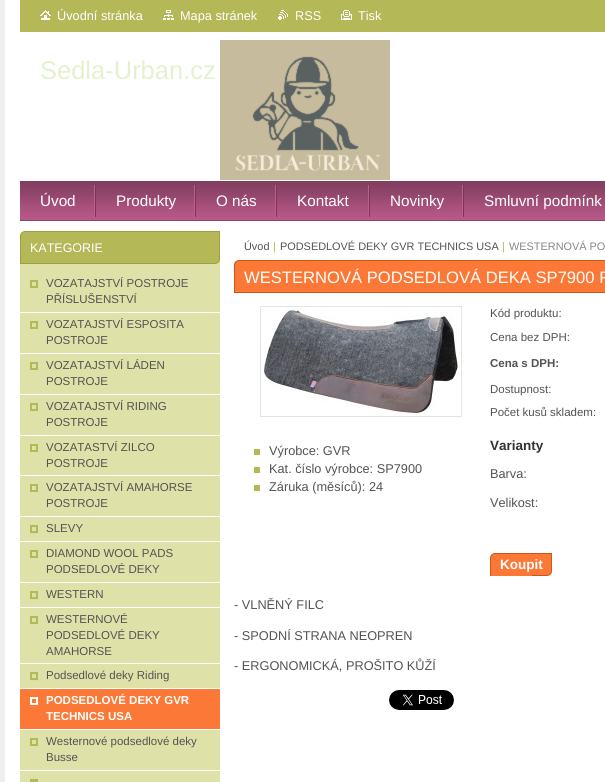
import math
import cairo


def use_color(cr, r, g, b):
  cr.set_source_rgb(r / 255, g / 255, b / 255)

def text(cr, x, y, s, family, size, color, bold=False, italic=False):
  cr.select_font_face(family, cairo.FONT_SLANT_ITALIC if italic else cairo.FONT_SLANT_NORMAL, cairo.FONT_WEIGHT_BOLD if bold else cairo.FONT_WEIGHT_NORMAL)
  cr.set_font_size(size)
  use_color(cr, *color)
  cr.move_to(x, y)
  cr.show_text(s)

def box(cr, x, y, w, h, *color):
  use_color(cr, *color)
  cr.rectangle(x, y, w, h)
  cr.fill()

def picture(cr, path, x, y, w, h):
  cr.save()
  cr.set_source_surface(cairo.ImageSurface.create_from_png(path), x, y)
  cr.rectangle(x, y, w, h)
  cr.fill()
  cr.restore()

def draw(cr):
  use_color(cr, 255, 255, 255)
  cr.paint()
  box(cr, 0, 0, 5, 782, 239, 239, 239)
  box(cr, 20, 0, 585, 32, 180, 184, 87)
  picture(cr, "img_01.png", 40, 10, 11, 10)
  picture(cr, "img_02.png", 163, 10, 11, 10)
  picture(cr, "img_03.png", 278, 10, 10, 10)
  picture(cr, "img_04.png", 341, 10, 11, 10)
  picture(cr, "img_05.png", 220, 40, 170, 140)
  picture(cr, "img_06.png", 20, 181, 585, 40)
  picture(cr, "img_07.png", 94, 185, 2, 32)
  picture(cr, "img_07.png", 194, 185, 2, 32)
  picture(cr, "img_07.png", 275, 185, 2, 32)
  picture(cr, "img_07.png", 368, 185, 2, 32)
  picture(cr, "img_07.png", 462, 185, 2, 32)
  box(cr, 20, 264, 200, 518, 223, 226, 168)
  picture(cr, "img_08.png", 20, 231, 200, 33)
  picture(cr, "img_09.png", 21, 259, 199, 5)
  picture(cr, "img_10.png", 30, 280, 8, 8)
  box(cr, 20, 312, 200, 1, 255, 255, 255)
  picture(cr, "img_10.png", 30, 321, 8, 8)
  box(cr, 20, 353, 200, 1, 255, 255, 255)
  picture(cr, "img_10.png", 30, 362, 8, 8)
  box(cr, 20, 394, 200, 1, 255, 255, 255)
  picture(cr, "img_10.png", 30, 403, 8, 8)
  box(cr, 20, 435, 200, 1, 255, 255, 255)
  picture(cr, "img_10.png", 30, 444, 8, 8)
  box(cr, 20, 475, 200, 1, 255, 255, 255)
  picture(cr, "img_10.png", 30, 484, 8, 8)
  box(cr, 20, 516, 200, 1, 255, 255, 255)
  picture(cr, "img_11.png", 30, 525, 8, 9)
  box(cr, 20, 541, 200, 1, 255, 255, 255)
  picture(cr, "img_10.png", 30, 550, 8, 8)
  box(cr, 20, 582, 200, 1, 255, 255, 255)
  picture(cr, "img_11.png", 30, 591, 8, 9)
  box(cr, 20, 607, 200, 1, 255, 255, 255)
  picture(cr, "img_10.png", 30, 616, 8, 8)
  box(cr, 20, 663, 200, 1, 255, 255, 255)
  picture(cr, "img_11.png", 30, 672, 8, 9)
  box(cr, 20, 688, 200, 1, 255, 255, 255)
  box(cr, 20, 689, 200, 40, 252, 120, 54)
  picture(cr, "img_12.png", 30, 697, 8, 8)
  box(cr, 20, 729, 200, 1, 255, 255, 255)
  picture(cr, "img_10.png", 30, 738, 8, 8)
  box(cr, 20, 770, 200, 1, 255, 255, 255)
  box(cr, 30, 779, 8, 3, 180, 184, 87)
  picture(cr, "img_13.png", 234, 260, 371, 33)
  box(cr, 235, 292, 370, 1, 200, 88, 25)
  cr.rectangle(260.5, 306.5, 201, 110)
  use_color(cr, 226, 229, 232)
  cr.set_line_width(1)
  cr.stroke()
  picture(cr, "img_14.png", 261, 307, 199, 108)
  box(cr, 254, 449, 6, 6, 180, 184, 87)
  box(cr, 254, 467, 6, 6, 180, 184, 87)
  box(cr, 254, 485, 6, 6, 180, 184, 87)
  picture(cr, "img_15.png", 490, 553, 62, 23)
  box(cr, 551, 554, 1, 11, 203, 90, 26)
  picture(cr, "img_16.png", 532, 565, 20, 11)
  picture(cr, "img_17.png", 389, 690, 65, 20)
  text(cr, 57, 20, "Úvodní stránka", "Liberation Sans", 12.75, (255, 255, 255))
  text(cr, 180, 20, "Mapa stránek", "Liberation Sans", 12.75, (255, 255, 255))
  text(cr, 295, 20, "RSS", "Liberation Sans", 12.75, (255, 255, 255))
  text(cr, 358, 20, "Tisk", "Liberation Sans", 12.75, (255, 255, 255))
  text(cr, 40, 79, "Sedla-Urban.cz", "Liberation Sans", 25.5, (228, 241, 207))
  text(cr, 40, 206, "Úvod", "Liberation Sans", 15.25, (255, 255, 255))
  text(cr, 116, 206, "Produkty", "Liberation Sans", 15.25, (255, 255, 255))
  text(cr, 216, 206, "O nás", "Liberation Sans", 15.25, (255, 255, 255))
  text(cr, 297, 206, "Kontakt", "Liberation Sans", 15.25, (255, 255, 255))
  text(cr, 390, 206, "Novinky", "Liberation Sans", 15.25, (255, 255, 255))
  text(cr, 484, 206, "Smluvní podmínk", "Liberation Sans", 15.25, (255, 255, 255))
  text(cr, 30, 252, "KATEGORIE", "Liberation Sans", 12.5, (255, 255, 255))
  text(cr, 46, 287, "VOZATAJSTVÍ POSTROJE", "Liberation Sans", 11.5, (83, 83, 83))
  text(cr, 46, 303, "PŘÍSLUŠENSTVÍ", "Liberation Sans", 11.5, (83, 83, 83))
  text(cr, 46, 328, "VOZATAJSTVÍ ESPOSITA", "Liberation Sans", 11.5, (83, 83, 83))
  text(cr, 46, 344, "POSTROJE", "Liberation Sans", 11.5, (83, 83, 83))
  text(cr, 46, 369, "VOZATAJSTVÍ LÁDEN", "Liberation Sans", 11.5, (83, 83, 83))
  text(cr, 46, 385, "POSTROJE", "Liberation Sans", 11.5, (83, 83, 83))
  text(cr, 46, 410, "VOZATAJSTVÍ RIDING", "Liberation Sans", 11.5, (83, 83, 83))
  text(cr, 46, 426, "POSTROJE", "Liberation Sans", 11.5, (83, 83, 83))
  text(cr, 46, 451, "VOZATASTVÍ ZILCO", "Liberation Sans", 11.5, (83, 83, 83))
  text(cr, 46, 467, "POSTROJE", "Liberation Sans", 11.5, (83, 83, 83))
  text(cr, 46, 491, "VOZATAJSTVÍ AMAHORSE", "Liberation Sans", 11.5, (83, 83, 83))
  text(cr, 46, 507, "POSTROJE", "Liberation Sans", 11.5, (83, 83, 83))
  text(cr, 46, 532, "SLEVY", "Liberation Sans", 11.5, (83, 83, 83))
  text(cr, 46, 557, "DIAMOND WOOL PADS", "Liberation Sans", 11.5, (83, 83, 83))
  text(cr, 46, 573, "PODSEDLOVÉ DEKY", "Liberation Sans", 11.5, (83, 83, 83))
  text(cr, 46, 598, "WESTERN", "Liberation Sans", 11.5, (83, 83, 83))
  text(cr, 46, 623, "WESTERNOVÉ", "Liberation Sans", 11.5, (83, 83, 83))
  text(cr, 46, 639, "PODSEDLOVÉ DEKY", "Liberation Sans", 11.5, (83, 83, 83))
  text(cr, 46, 655, "AMAHORSE", "Liberation Sans", 11.5, (83, 83, 83))
  text(cr, 46, 679, "Podsedlové deky Riding", "Liberation Sans", 11.5, (83, 83, 83))
  text(cr, 46, 704, "PODSEDLOVÉ DEKY GVR", "Liberation Sans", 11.5, (255, 255, 255), bold=True)
  text(cr, 46, 720, "TECHNICS USA", "Liberation Sans", 11.5, (255, 255, 255), bold=True)
  text(cr, 46, 745, "Westernové podsedlové deky", "Liberation Sans", 11.5, (83, 83, 83))
  text(cr, 46, 761, "Busse", "Liberation Sans", 11.5, (83, 83, 83))
  text(cr, 244, 250, "Úvod", "Liberation Sans", 10.9, (83, 83, 83))
  text(cr, 273, 250, "|", "Liberation Sans", 10.9, (180, 184, 87))
  text(cr, 280, 250, "PODSEDLOVÉ DEKY GVR TECHNICS USA", "Liberation Sans", 10.9, (83, 83, 83))
  text(cr, 502, 250, "|", "Liberation Sans", 10.9, (180, 184, 87))
  text(cr, 509, 250, "WESTERNOVÁ PO", "Liberation Sans", 10.9, (135, 135, 135))
  text(cr, 244, 283, "WESTERNOVÁ PODSEDLOVÁ DEKA SP7900 F", "Liberation Sans", 16.6, (255, 255, 255))
  text(cr, 269, 455, "Výrobce: GVR", "Liberation Sans", 12.75, (83, 83, 83))
  text(cr, 269, 473, "Kat. číslo výrobce: SP7900", "Liberation Sans", 12.75, (83, 83, 83))
  text(cr, 269, 491, "Záruka (měsíců): 24", "Liberation Sans", 12.75, (83, 83, 83))
  text(cr, 490, 317, "Kód produktu:", "Liberation Sans", 11.5, (83, 83, 83))
  text(cr, 490, 341, "Cena bez DPH:", "Liberation Sans", 11.5, (83, 83, 83))
  text(cr, 490, 367, "Cena s DPH:", "Liberation Sans", 11.5, (83, 83, 83), bold=True)
  text(cr, 490, 393, "Dostupnost:", "Liberation Sans", 11.5, (83, 83, 83))
  text(cr, 490, 416, "Počet kusů skladem:", "Liberation Sans", 11.5, (83, 83, 83))
  text(cr, 490, 450, "Varianty", "Liberation Sans", 13.5, (51, 51, 51), bold=True)
  text(cr, 490, 478, "Barva:", "Liberation Sans", 12.75, (83, 83, 83))
  text(cr, 490, 507, "Velikost:", "Liberation Sans", 12.75, (83, 83, 83))
  text(cr, 500, 569, "Koupit", "Liberation Sans", 13.5, (255, 255, 255), bold=True)
  text(cr, 234, 609, "- VLNĚNÝ FILC", "Liberation Sans", 12.75, (83, 83, 83))
  text(cr, 234, 640, "- SPODNÍ STRANA NEOPREN", "Liberation Sans", 12.75, (83, 83, 83))
  text(cr, 234, 670, "- ERGONOMICKÁ, PROŠITO KŮŽÍ", "Liberation Sans", 12.75, (83, 83, 83))


surface = cairo.ImageSurface(cairo.FORMAT_RGB24, 605, 782)
cr = cairo.Context(surface)
options = cairo.FontOptions()
options.set_hint_metrics(cairo.HINT_METRICS_OFF)
options.set_hint_style(cairo.HINT_STYLE_NONE)
cr.set_font_options(options)
cr.set_miter_limit(4)
draw(cr)
surface.write_to_png("out.png")
